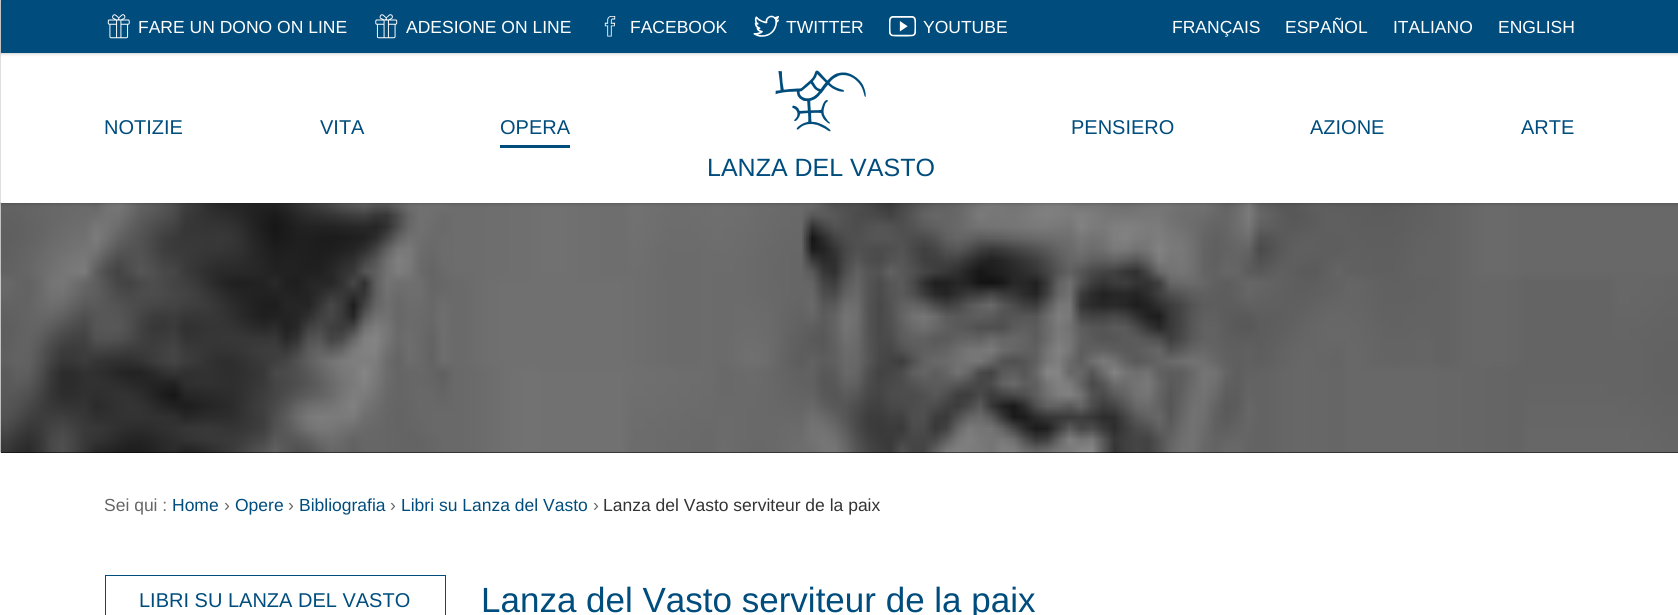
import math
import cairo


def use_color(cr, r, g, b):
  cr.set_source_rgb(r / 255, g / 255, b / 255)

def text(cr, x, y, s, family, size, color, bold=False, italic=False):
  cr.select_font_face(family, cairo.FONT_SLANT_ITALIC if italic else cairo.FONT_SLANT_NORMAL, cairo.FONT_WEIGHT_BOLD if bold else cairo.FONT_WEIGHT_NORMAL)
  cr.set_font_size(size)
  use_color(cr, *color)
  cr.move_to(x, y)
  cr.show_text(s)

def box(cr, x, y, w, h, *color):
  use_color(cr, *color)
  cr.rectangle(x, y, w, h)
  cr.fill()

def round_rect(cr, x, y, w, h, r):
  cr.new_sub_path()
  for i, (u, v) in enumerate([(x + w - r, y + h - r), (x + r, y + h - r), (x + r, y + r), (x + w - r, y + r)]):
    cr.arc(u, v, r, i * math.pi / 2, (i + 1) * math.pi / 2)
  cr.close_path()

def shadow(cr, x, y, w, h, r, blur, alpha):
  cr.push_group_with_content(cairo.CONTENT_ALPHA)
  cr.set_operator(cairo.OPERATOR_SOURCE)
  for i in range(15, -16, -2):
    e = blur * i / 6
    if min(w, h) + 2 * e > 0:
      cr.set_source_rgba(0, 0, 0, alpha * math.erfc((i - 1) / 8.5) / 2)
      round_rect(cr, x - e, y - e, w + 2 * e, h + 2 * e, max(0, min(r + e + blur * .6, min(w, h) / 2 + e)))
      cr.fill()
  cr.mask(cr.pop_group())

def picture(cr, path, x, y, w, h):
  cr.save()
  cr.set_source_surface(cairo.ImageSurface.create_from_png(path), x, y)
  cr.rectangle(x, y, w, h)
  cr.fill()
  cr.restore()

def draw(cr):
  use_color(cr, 255, 255, 255)
  cr.paint()
  box(cr, 1, 452, 1677, 1, 0, 0, 0)
  picture(cr, "img_07.png", 0, 202, 1678, 251)
  use_color(cr, 0, 0, 0)
  shadow(cr, 1, 0, 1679, 203, 0, 2, 0.3)
  box(cr, 1, 53, 1677, 150, 255, 255, 255)
  use_color(cr, 0, 0, 0)
  shadow(cr, 1, 0, 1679, 53, 0, 2, 0.3)
  box(cr, 1, 0, 1677, 53, 0, 77, 125)
  picture(cr, "img_01.png", 107, 14, 23, 25)
  picture(cr, "img_02.png", 375, 14, 23, 25)
  picture(cr, "img_03.png", 604, 16, 12, 21)
  picture(cr, "img_04.png", 753, 15, 26, 22)
  picture(cr, "img_05.png", 889, 16, 27, 21)
  box(cr, 500, 145, 70, 3, 0, 77, 125)
  picture(cr, "img_06.png", 775, 70, 91, 62)
  cr.rectangle(105.5, 575.5, 340, 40)
  cr.set_line_width(1)
  cr.stroke()
  text(cr, 138, 33, "FARE UN DONO ON LINE", "Liberation Sans", 17.5, (255, 255, 255))
  text(cr, 406, 33, "ADESIONE ON LINE", "Liberation Sans", 17.5, (255, 255, 255))
  text(cr, 630, 33, "FACEBOOK", "Liberation Sans", 17.5, (255, 255, 255))
  text(cr, 786, 33, "TWITTER", "Liberation Sans", 17.5, (255, 255, 255))
  text(cr, 923, 33, "YOUTUBE", "Liberation Sans", 17.5, (255, 255, 255))
  text(cr, 1172, 33, "FRANÇAIS", "Liberation Sans", 17.5, (255, 255, 255))
  text(cr, 1285, 33, "ESPAÑOL", "Liberation Sans", 17.5, (255, 255, 255))
  text(cr, 1393, 33, "ITALIANO", "Liberation Sans", 17.5, (255, 255, 255))
  text(cr, 1498, 33, "ENGLISH", "Liberation Sans", 17.5, (255, 255, 255))
  text(cr, 104, 134, "NOTIZIE", "Liberation Sans", 20, (0, 77, 125))
  text(cr, 320, 134, "VITA", "Liberation Sans", 20, (0, 77, 125))
  text(cr, 500, 134, "OPERA", "Liberation Sans", 20, (0, 77, 125))
  text(cr, 1071, 134, "PENSIERO", "Liberation Sans", 20, (0, 77, 125))
  text(cr, 1310, 134, "AZIONE", "Liberation Sans", 20, (0, 77, 125))
  text(cr, 1521, 134, "ARTE", "Liberation Sans", 20, (0, 77, 125))
  text(cr, 707, 176, "LANZA DEL VASTO", "Liberation Sans", 25, (0, 77, 125))
  text(cr, 104, 511, "Sei qui :", "Liberation Sans", 17.5, (102, 102, 102))
  text(cr, 172, 511, "Home", "Liberation Sans", 17.5, (0, 77, 125))
  text(cr, 224, 511, "›", "Liberation Sans", 17.5, (102, 102, 102))
  text(cr, 235, 511, "Opere", "Liberation Sans", 17.5, (0, 77, 125))
  text(cr, 288, 511, "›", "Liberation Sans", 17.5, (102, 102, 102))
  text(cr, 299, 511, "Bibliografia", "Liberation Sans", 17.5, (0, 77, 125))
  text(cr, 390, 511, "›", "Liberation Sans", 17.5, (102, 102, 102))
  text(cr, 401, 511, "Libri su Lanza del Vasto", "Liberation Sans", 17.5, (0, 77, 125))
  text(cr, 593, 511, "›", "Liberation Sans", 17.5, (102, 102, 102))
  text(cr, 603, 511, "Lanza del Vasto serviteur de la paix", "Liberation Sans", 17.5, (51, 51, 51))
  text(cr, 139, 607, "LIBRI SU LANZA DEL VASTO", "Liberation Sans", 20, (0, 77, 125))
  text(cr, 481, 612, "Lanza del Vasto serviteur de la paix", "Liberation Sans", 35, (0, 77, 125))


surface = cairo.ImageSurface(cairo.FORMAT_RGB24, 1678, 615)
cr = cairo.Context(surface)
options = cairo.FontOptions()
options.set_hint_metrics(cairo.HINT_METRICS_OFF)
options.set_hint_style(cairo.HINT_STYLE_NONE)
cr.set_font_options(options)
cr.set_miter_limit(4)
draw(cr)
surface.write_to_png("out.png")
